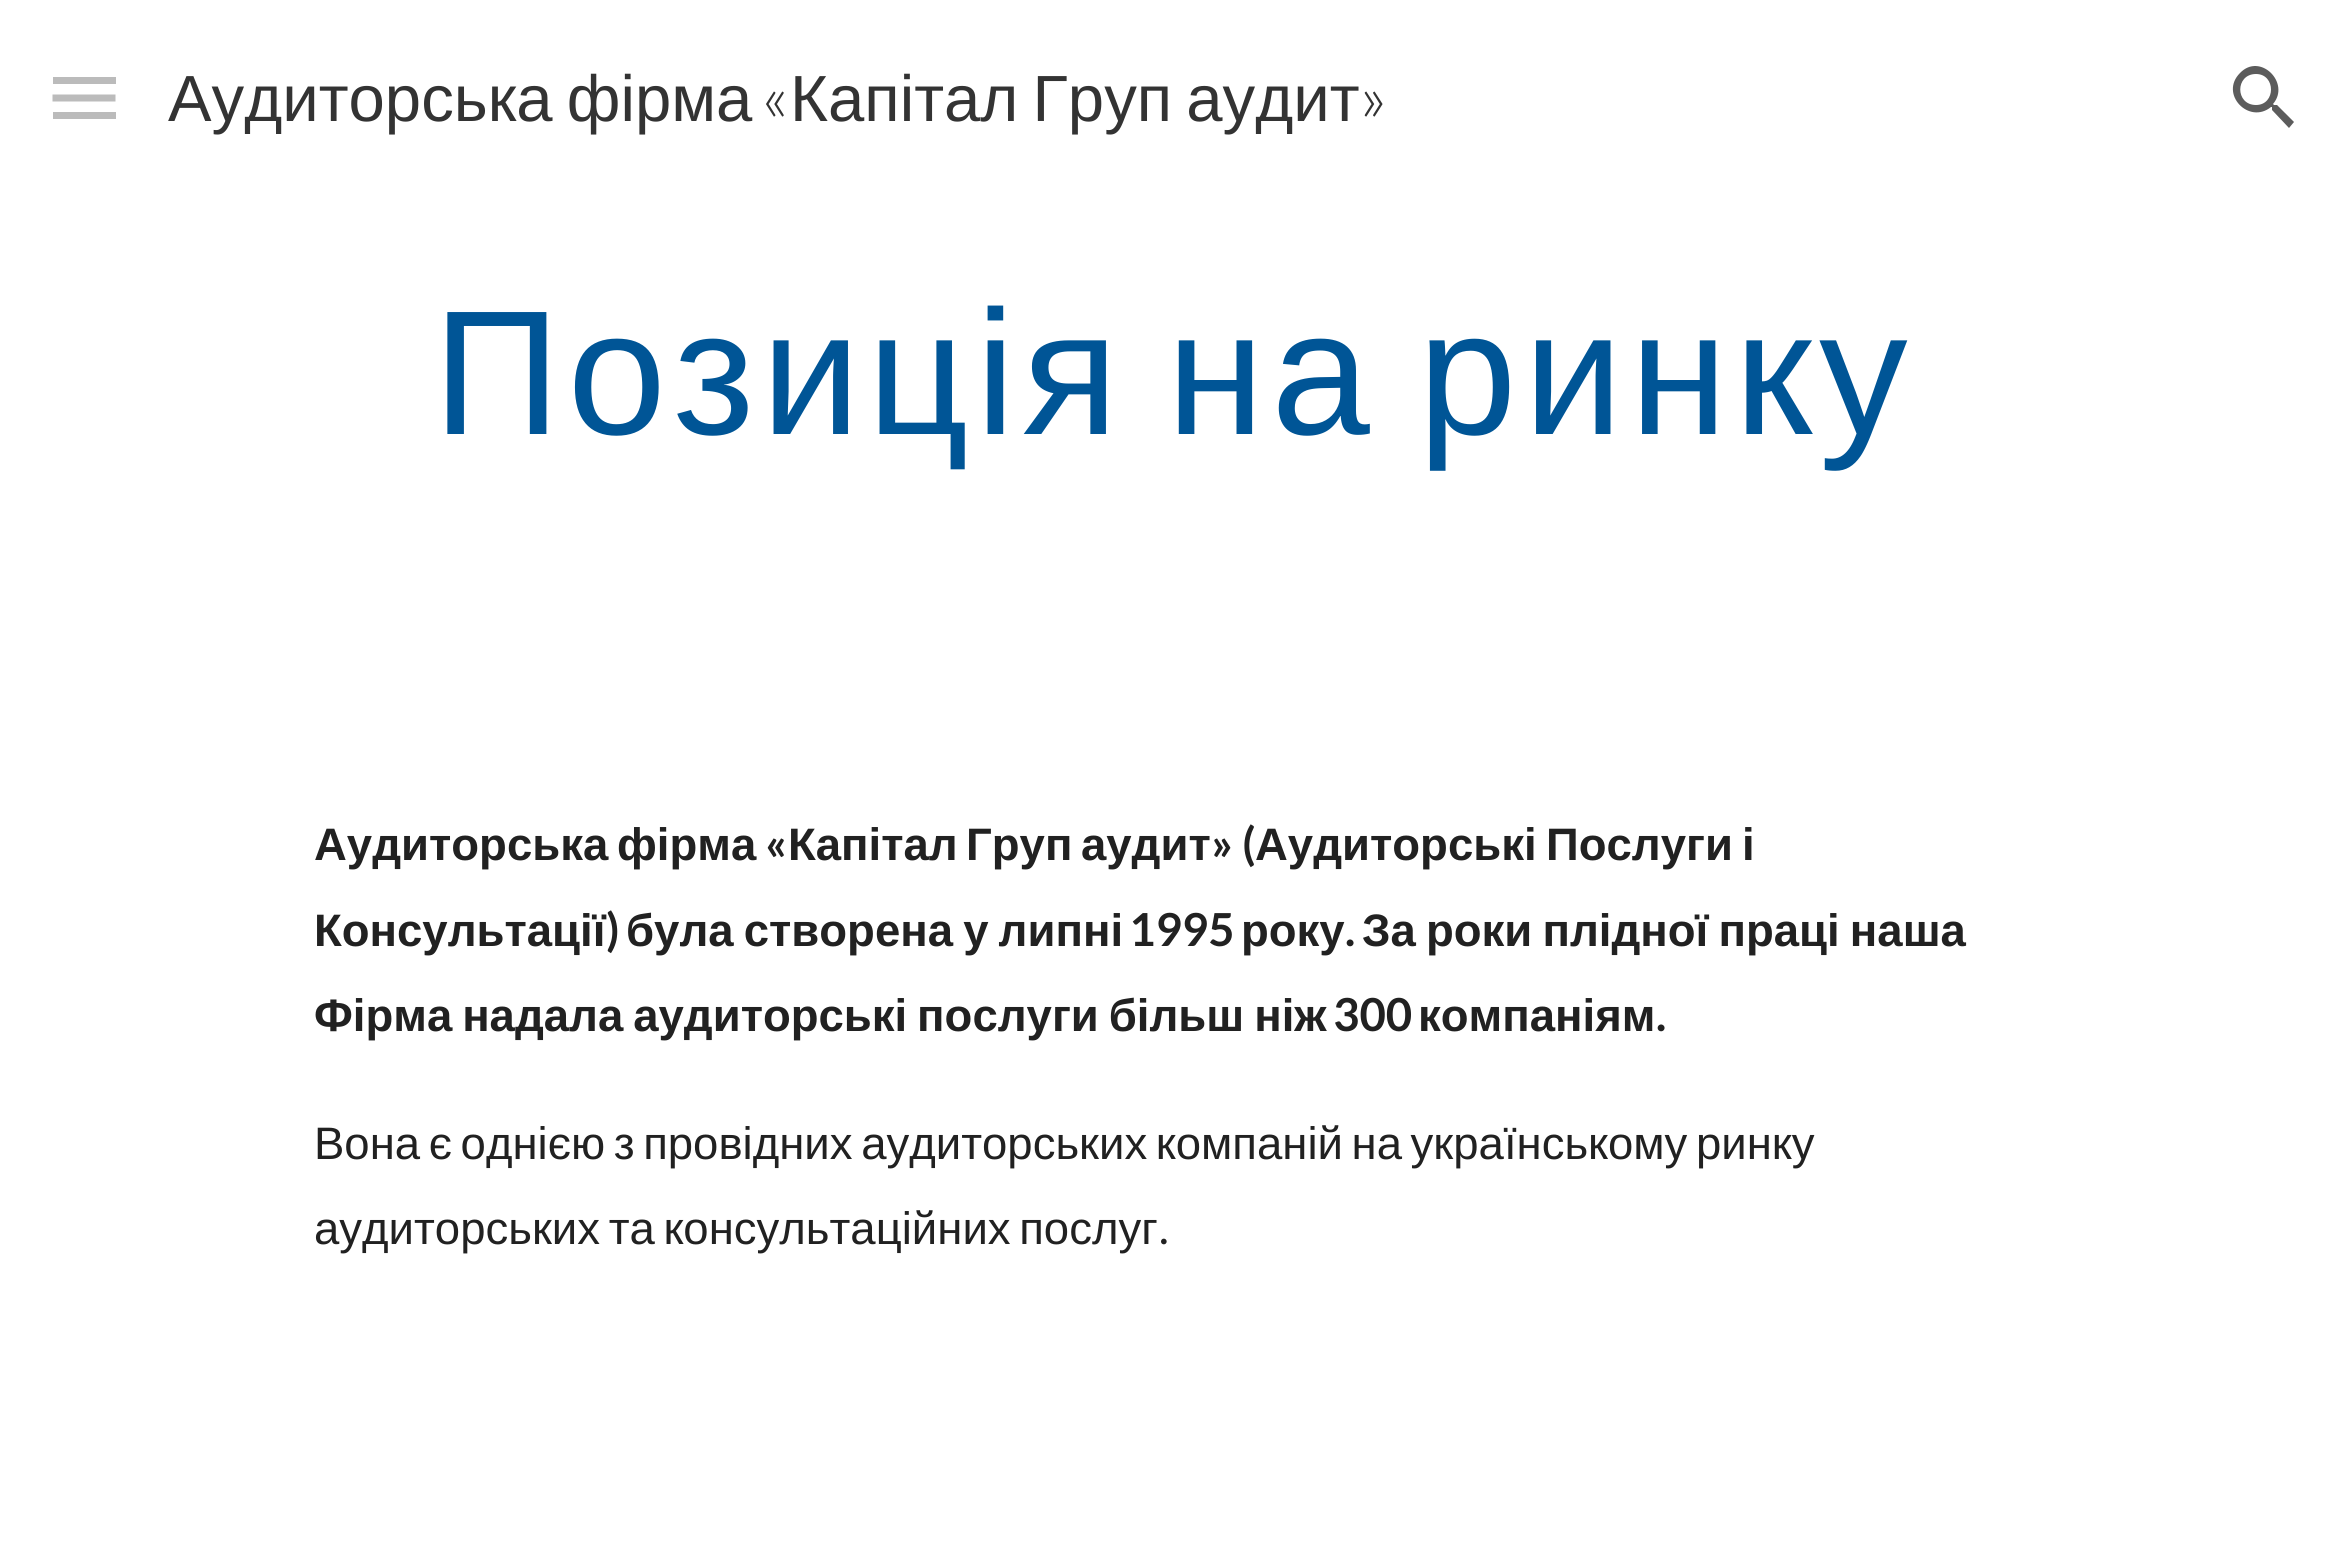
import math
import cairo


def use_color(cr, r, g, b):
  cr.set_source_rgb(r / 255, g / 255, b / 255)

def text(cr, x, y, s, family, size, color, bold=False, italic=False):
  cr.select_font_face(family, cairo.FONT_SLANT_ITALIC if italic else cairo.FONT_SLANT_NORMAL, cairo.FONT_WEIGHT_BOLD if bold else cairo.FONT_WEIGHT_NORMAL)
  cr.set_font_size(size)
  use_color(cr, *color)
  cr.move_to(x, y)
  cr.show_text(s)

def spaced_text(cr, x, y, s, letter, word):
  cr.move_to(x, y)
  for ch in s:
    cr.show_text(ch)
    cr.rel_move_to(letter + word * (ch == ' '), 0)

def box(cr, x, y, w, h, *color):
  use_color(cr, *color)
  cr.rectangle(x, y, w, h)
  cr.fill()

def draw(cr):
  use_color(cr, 255, 255, 255)
  cr.paint()
  box(cr, 53, 77, 63, 7, 187, 187, 187)
  cr.new_path()
  cr.move_to(52.5, 98)
  cr.line_to(115.5, 98)
  cr.set_line_width(7)
  cr.stroke()
  box(cr, 53, 112, 63, 7, 187, 187, 187)
  use_color(cr, 92, 92, 92)
  cr.new_path()
  cr.move_to(2277, 105)
  cr.line_to(2274, 105)
  cr.line_to(2273, 104)
  cr.curve_to(2291, 83, 2260, 52, 2240, 73)
  cr.curve_to(2219, 94, 2249, 125, 2271, 107)
  cr.line_to(2272, 107)
  cr.line_to(2272, 110)
  cr.line_to(2289, 128)
  cr.line_to(2294, 122)
  cr.close_path()
  cr.move_to(2256, 105)
  cr.curve_to(2235, 105, 2235, 74, 2256, 74)
  cr.curve_to(2276, 74, 2276, 105, 2256, 105)
  cr.close_path()
  cr.fill()
  cr.select_font_face("Liberation Sans")
  cr.set_font_size(65.25)
  use_color(cr, 51, 51, 51)
  spaced_text(cr, 168, 121, "Аудиторська фірма", 0, -4)
  text(cr, 761, 121, "«", "Lato Light", 65.25, (51, 51, 51))
  cr.select_font_face("Liberation Sans")
  spaced_text(cr, 790, 121, "Капітал Груп аудит", 0, -4)
  text(cr, 1359, 121, "»", "Lato Light", 65.25, (51, 51, 51))
  cr.select_font_face("Liberation Sans")
  cr.set_font_size(177.25)
  use_color(cr, 0, 85, 150)
  spaced_text(cr, 433, 434, "Позиція на ринку", 7, -15)
  text(cr, 314, 860, "Аудиторська", "Liberation Sans", 45.5, (33, 33, 33), bold=True)
  text(cr, 617, 860, "фірма", "Liberation Sans", 45.5, (33, 33, 33), bold=True)
  text(cr, 765, 860, "«", "Lato", 45.5, (33, 33, 33), bold=True)
  text(cr, 788, 860, "Капітал", "Liberation Sans", 45.5, (33, 33, 33), bold=True)
  text(cr, 966, 860, "Груп", "Liberation Sans", 45.5, (33, 33, 33), bold=True)
  text(cr, 1081, 860, "аудит", "Liberation Sans", 45.5, (33, 33, 33), bold=True)
  text(cr, 1211, 860, "» (", "Lato", 45.5, (33, 33, 33), bold=True)
  text(cr, 1255, 860, "Аудиторські", "Liberation Sans", 45.5, (33, 33, 33), bold=True)
  text(cr, 1546, 860, "Послуги", "Liberation Sans", 45.5, (33, 33, 33), bold=True)
  text(cr, 1742, 860, "і", "Liberation Sans", 45.5, (33, 33, 33), bold=True)
  text(cr, 314, 946, "Консультації", "Liberation Sans", 45.5, (33, 33, 33), bold=True)
  text(cr, 606, 946, ")", "Lato", 45.5, (33, 33, 33), bold=True)
  cr.select_font_face("Liberation Sans", cairo.FONT_SLANT_NORMAL, cairo.FONT_WEIGHT_BOLD)
  spaced_text(cr, 626, 946, "була створена у липні", 0, -2.5)
  text(cr, 1129, 946, "1995", "Lato", 45.5, (33, 33, 33), bold=True)
  text(cr, 1241, 946, "року", "Liberation Sans", 45.5, (33, 33, 33), bold=True)
  text(cr, 1345, 946, ".", "Lato", 45.5, (33, 33, 33), bold=True)
  cr.select_font_face("Liberation Sans", cairo.FONT_SLANT_NORMAL, cairo.FONT_WEIGHT_BOLD)
  spaced_text(cr, 1362, 946, "За роки плідної праці наша", 0, -2.5)
  spaced_text(cr, 314, 1031, "Фірма надала аудиторські послуги більш ніж", 0, -2.75)
  text(cr, 1333, 1031, "300", "Lato", 45.5, (33, 33, 33), bold=True)
  text(cr, 1418, 1031, "компаніям", "Liberation Sans", 45.5, (33, 33, 33), bold=True)
  text(cr, 1656, 1031, ".", "Lato", 45.5, (33, 33, 33), bold=True)
  cr.select_font_face("Liberation Sans")
  spaced_text(cr, 314, 1159, "Вона є однією з провідних аудиторських компаній на українському ринку", 0, -4)
  spaced_text(cr, 314, 1244, "аудиторських та консультаційних послуг", 0, -4)
  text(cr, 1159, 1244, ".", "Lato", 45.5, (33, 33, 33))


surface = cairo.ImageSurface(cairo.FORMAT_RGB24, 2348, 1559)
cr = cairo.Context(surface)
options = cairo.FontOptions()
options.set_hint_metrics(cairo.HINT_METRICS_OFF)
options.set_hint_style(cairo.HINT_STYLE_NONE)
cr.set_font_options(options)
cr.set_miter_limit(4)
draw(cr)
surface.write_to_png("out.png")
